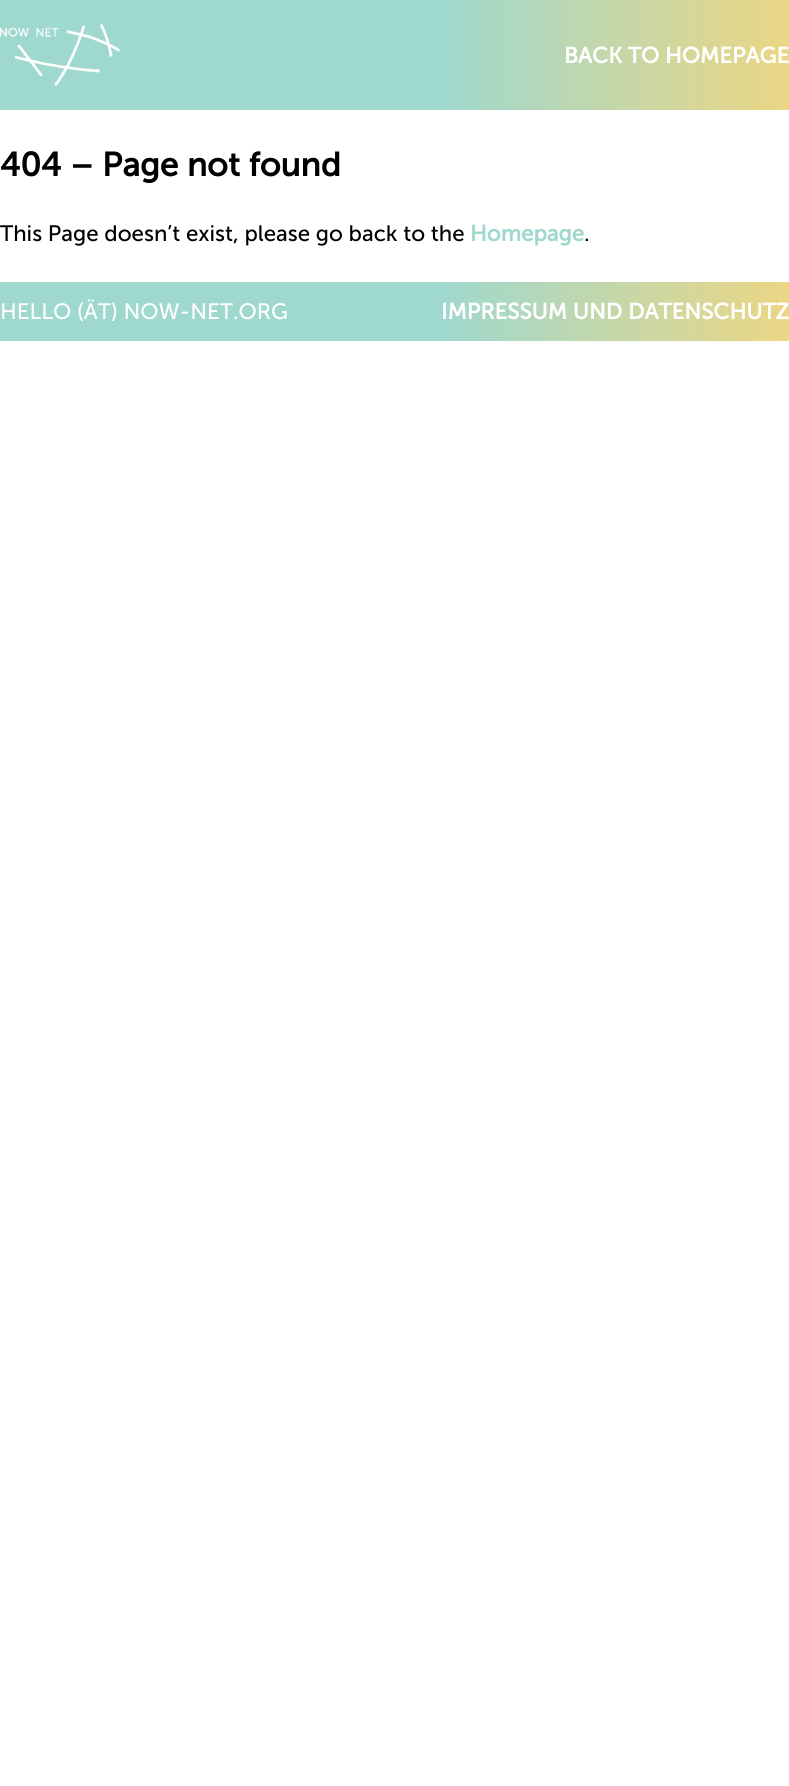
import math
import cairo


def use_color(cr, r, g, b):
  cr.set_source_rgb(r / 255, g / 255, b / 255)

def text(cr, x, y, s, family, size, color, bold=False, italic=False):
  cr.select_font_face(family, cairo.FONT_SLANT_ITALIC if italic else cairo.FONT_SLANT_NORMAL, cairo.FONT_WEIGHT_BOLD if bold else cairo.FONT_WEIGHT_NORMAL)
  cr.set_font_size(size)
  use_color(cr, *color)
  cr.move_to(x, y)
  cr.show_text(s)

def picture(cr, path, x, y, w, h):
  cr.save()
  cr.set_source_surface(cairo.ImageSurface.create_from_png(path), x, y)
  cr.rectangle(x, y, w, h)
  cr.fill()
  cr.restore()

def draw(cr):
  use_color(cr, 255, 255, 255)
  cr.paint()
  gradient = cairo.LinearGradient(0, 55, 789, 55)
  gradient.add_color_stop_rgba(0.56, 0.624, 0.847, 0.808, 1)
  gradient.add_color_stop_rgba(1, 0.922, 0.839, 0.518, 1)
  cr.set_source(gradient)
  cr.rectangle(0, 0, 789, 110)
  cr.fill()
  picture(cr, "img_01.png", 0, 24, 120, 62)
  gradient = cairo.LinearGradient(0, 312, 789, 312)
  gradient.add_color_stop_rgba(0.56, 0.624, 0.847, 0.808, 1)
  gradient.add_color_stop_rgba(1, 0.922, 0.839, 0.518, 1)
  cr.set_source(gradient)
  cr.rectangle(0, 282, 789, 59)
  cr.fill()
  text(cr, 564, 63, "BACK TO HOMEPAGE", "Museo Sans", 22.25, (255, 255, 255), bold=True)
  text(cr, 0, 176, "404 – Page not found", "Museo Sans", 33.4, (0, 0, 0), bold=True)
  text(cr, 0, 241, "This Page doesn’t exist, please go back to the", "Museo Sans", 22.25, (0, 0, 0))
  text(cr, 470, 241, "Homepage", "Museo Sans", 22.25, (159, 216, 206), bold=True)
  text(cr, 584, 241, ".", "Museo Sans", 22.25, (0, 0, 0))
  text(cr, 0, 319, "HELLO (ÄT) NOW-NET.ORG", "Museo Sans", 22.25, (255, 255, 255))
  text(cr, 441, 319, "IMPRESSUM UND DATENSCHUTZ", "Museo Sans", 22.25, (255, 255, 255), bold=True)


surface = cairo.ImageSurface(cairo.FORMAT_RGB24, 789, 1786)
cr = cairo.Context(surface)
options = cairo.FontOptions()
options.set_hint_metrics(cairo.HINT_METRICS_OFF)
options.set_hint_style(cairo.HINT_STYLE_NONE)
cr.set_font_options(options)
cr.set_miter_limit(4)
draw(cr)
surface.write_to_png("out.png")
